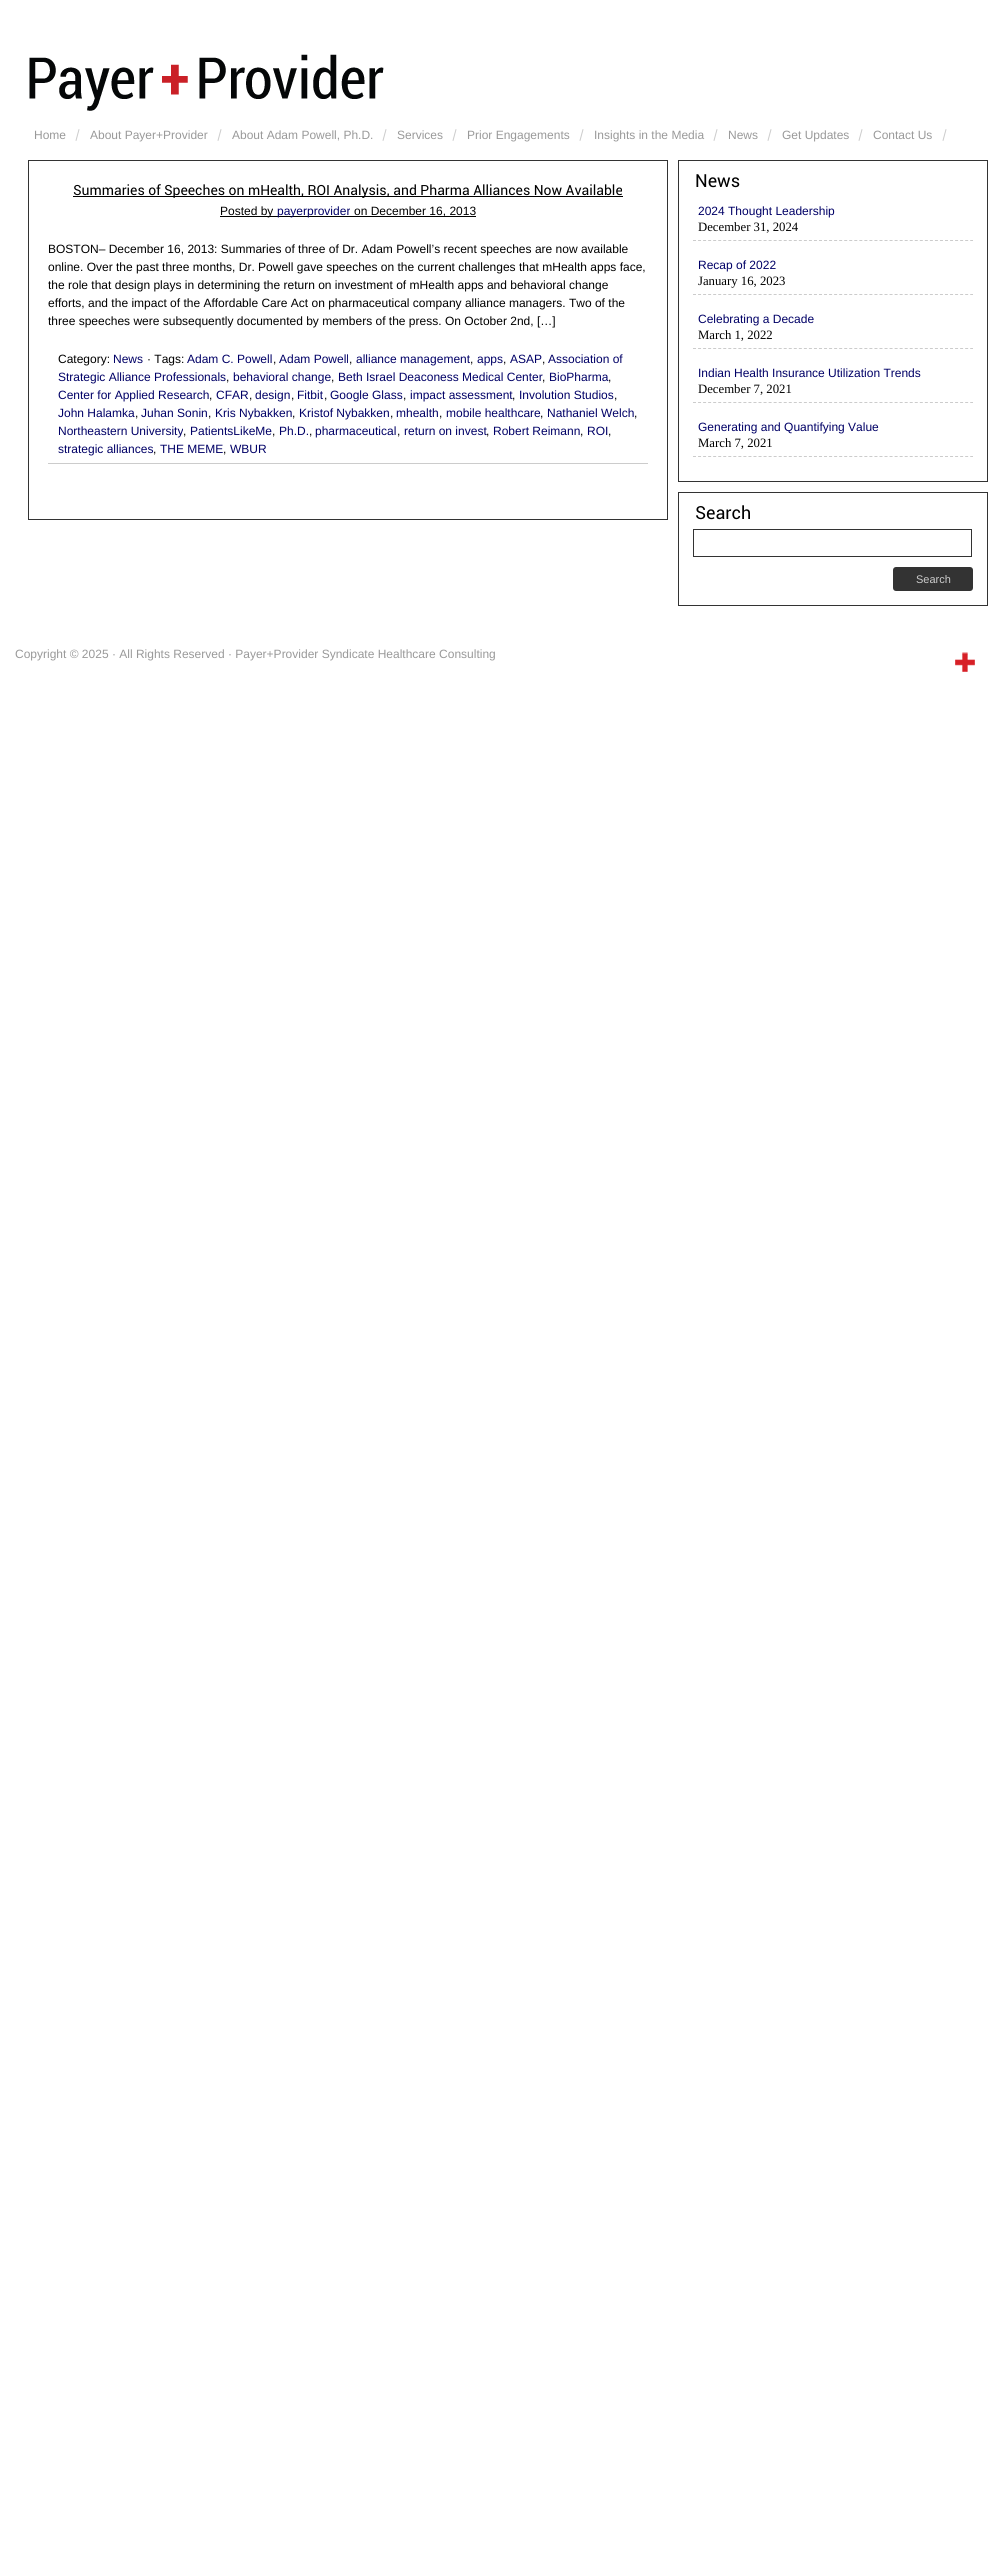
import math
import cairo


def use_color(cr, r, g, b):
  cr.set_source_rgb(r / 255, g / 255, b / 255)

def text(cr, x, y, s, family, size, color, bold=False, italic=False):
  cr.select_font_face(family, cairo.FONT_SLANT_ITALIC if italic else cairo.FONT_SLANT_NORMAL, cairo.FONT_WEIGHT_BOLD if bold else cairo.FONT_WEIGHT_NORMAL)
  cr.set_font_size(size)
  use_color(cr, *color)
  cr.move_to(x, y)
  cr.show_text(s)

def box(cr, x, y, w, h, *color):
  use_color(cr, *color)
  cr.rectangle(x, y, w, h)
  cr.fill()

def round_rect(cr, x, y, w, h, r):
  cr.new_sub_path()
  for i, (u, v) in enumerate([(x + w - r, y + h - r), (x + r, y + h - r), (x + r, y + r), (x + w - r, y + r)]):
    cr.arc(u, v, r, i * math.pi / 2, (i + 1) * math.pi / 2)
  cr.close_path()

def picture(cr, path, x, y, w, h):
  cr.save()
  cr.set_source_surface(cairo.ImageSurface.create_from_png(path), x, y)
  cr.rectangle(x, y, w, h)
  cr.fill()
  cr.restore()

def draw(cr):
  use_color(cr, 255, 255, 255)
  cr.paint()
  picture(cr, "img_01.png", 29, 54, 355, 57)
  picture(cr, "img_02.png", 75, 129, 5, 12)
  picture(cr, "img_02.png", 217, 129, 5, 12)
  picture(cr, "img_02.png", 382, 129, 5, 12)
  picture(cr, "img_02.png", 452, 129, 5, 12)
  picture(cr, "img_02.png", 579, 129, 5, 12)
  picture(cr, "img_02.png", 713, 129, 5, 12)
  picture(cr, "img_02.png", 767, 129, 5, 12)
  picture(cr, "img_02.png", 858, 129, 5, 12)
  picture(cr, "img_02.png", 942, 129, 5, 12)
  cr.rectangle(28.5, 160.5, 639, 359)
  use_color(cr, 51, 51, 51)
  cr.set_line_width(1)
  cr.stroke()
  box(cr, 73, 196, 550, 1, 0, 0, 0)
  box(cr, 220, 216, 130, 1, 0, 0, 0)
  box(cr, 48, 463, 600, 1, 204, 204, 204)
  cr.rectangle(678.5, 160.5, 309, 321)
  use_color(cr, 51, 51, 51)
  cr.stroke()
  cr.new_path()
  cr.move_to(693, 240.5)
  cr.line_to(973, 240.5)
  use_color(cr, 204, 204, 204)
  cr.set_dash([3, 2.04])
  cr.stroke()
  cr.new_path()
  cr.move_to(693, 294.5)
  cr.line_to(973, 294.5)
  cr.stroke()
  cr.new_path()
  cr.move_to(693, 348.5)
  cr.line_to(973, 348.5)
  cr.stroke()
  cr.new_path()
  cr.move_to(693, 402.5)
  cr.line_to(973, 402.5)
  cr.stroke()
  cr.new_path()
  cr.move_to(693, 456.5)
  cr.line_to(973, 456.5)
  cr.stroke()
  cr.rectangle(678.5, 492.5, 309, 113)
  use_color(cr, 51, 51, 51)
  cr.set_dash([])
  cr.stroke()
  cr.rectangle(693.5, 529.5, 278, 27)
  cr.stroke()
  round_rect(cr, 893, 567, 80, 24, 3)
  cr.fill()
  picture(cr, "img_03.png", 955, 652, 20, 20)
  text(cr, 34, 139, "Home", "Liberation Sans", 12, (153, 153, 153))
  text(cr, 90, 139, "About Payer+Provider", "Liberation Sans", 12, (153, 153, 153))
  text(cr, 232, 139, "About Adam Powell, Ph.D.", "Liberation Sans", 12, (153, 153, 153))
  text(cr, 397, 139, "Services", "Liberation Sans", 12, (153, 153, 153))
  text(cr, 467, 139, "Prior Engagements", "Liberation Sans", 12, (153, 153, 153))
  text(cr, 594, 139, "Insights in the Media", "Liberation Sans", 12, (153, 153, 153))
  text(cr, 728, 139, "News", "Liberation Sans", 12, (153, 153, 153))
  text(cr, 782, 139, "Get Updates", "Liberation Sans", 12, (153, 153, 153))
  text(cr, 873, 139, "Contact Us", "Liberation Sans", 12, (153, 153, 153))
  text(cr, 73, 195, "Summaries of Speeches on mHealth, ROI Analysis, and Pharma Alliances Now Available", "Roboto", 14, (0, 0, 0))
  text(cr, 220, 215, "Posted by", "Liberation Sans", 12, (0, 0, 0))
  text(cr, 277, 215, "payerprovider", "Liberation Sans", 12, (0, 0, 102))
  box(cr, 350, 216, 126, 1, 0, 0, 0)
  text(cr, 354, 215, "on December 16, 2013", "Liberation Sans", 12, (0, 0, 0))
  text(cr, 48, 253, "BOSTON– December 16, 2013: Summaries of three of Dr. Adam Powell’s recent speeches are now available", "Liberation Sans", 12, (0, 0, 0))
  text(cr, 48, 271, "online. Over the past three months, Dr. Powell gave speeches on the current challenges that mHealth apps face,", "Liberation Sans", 12, (0, 0, 0))
  text(cr, 48, 289, "the role that design plays in determining the return on investment of mHealth apps and behavioral change", "Liberation Sans", 12, (0, 0, 0))
  text(cr, 48, 307, "efforts, and the impact of the Affordable Care Act on pharmaceutical company alliance managers. Two of the", "Liberation Sans", 12, (0, 0, 0))
  text(cr, 48, 325, "three speeches were subsequently documented by members of the press. On October 2nd, […]", "Liberation Sans", 12, (0, 0, 0))
  text(cr, 58, 363, "Category:", "Liberation Sans", 12, (0, 0, 0))
  text(cr, 113, 363, "News", "Liberation Sans", 12, (0, 0, 102))
  text(cr, 147, 363, "· Tags:", "Liberation Sans", 12, (0, 0, 0))
  text(cr, 187, 363, "Adam C. Powell", "Liberation Sans", 12, (0, 0, 102))
  text(cr, 273, 363, ",", "Liberation Sans", 12, (0, 0, 0))
  text(cr, 279, 363, "Adam Powell", "Liberation Sans", 12, (0, 0, 102))
  text(cr, 349, 363, ",", "Liberation Sans", 12, (0, 0, 0))
  text(cr, 356, 363, "alliance management", "Liberation Sans", 12, (0, 0, 102))
  text(cr, 470, 363, ",", "Liberation Sans", 12, (0, 0, 0))
  text(cr, 477, 363, "apps", "Liberation Sans", 12, (0, 0, 102))
  text(cr, 503, 363, ",", "Liberation Sans", 12, (0, 0, 0))
  text(cr, 510, 363, "ASAP", "Liberation Sans", 12, (0, 0, 102))
  text(cr, 542, 363, ",", "Liberation Sans", 12, (0, 0, 0))
  text(cr, 548, 363, "Association of", "Liberation Sans", 12, (0, 0, 102))
  text(cr, 58, 381, "Strategic Alliance Professionals", "Liberation Sans", 12, (0, 0, 102))
  text(cr, 226, 381, ",", "Liberation Sans", 12, (0, 0, 0))
  text(cr, 233, 381, "behavioral change", "Liberation Sans", 12, (0, 0, 102))
  text(cr, 331, 381, ",", "Liberation Sans", 12, (0, 0, 0))
  text(cr, 338, 381, "Beth Israel Deaconess Medical Center", "Liberation Sans", 12, (0, 0, 102))
  text(cr, 542, 381, ",", "Liberation Sans", 12, (0, 0, 0))
  text(cr, 549, 381, "BioPharma", "Liberation Sans", 12, (0, 0, 102))
  text(cr, 608, 381, ",", "Liberation Sans", 12, (0, 0, 0))
  text(cr, 58, 399, "Center for Applied Research", "Liberation Sans", 12, (0, 0, 102))
  text(cr, 209, 399, ",", "Liberation Sans", 12, (0, 0, 0))
  text(cr, 216, 399, "CFAR", "Liberation Sans", 12, (0, 0, 102))
  text(cr, 249, 399, ",", "Liberation Sans", 12, (0, 0, 0))
  text(cr, 255, 399, "design", "Liberation Sans", 12, (0, 0, 102))
  text(cr, 291, 399, ",", "Liberation Sans", 12, (0, 0, 0))
  text(cr, 297, 399, "Fitbit", "Liberation Sans", 12, (0, 0, 102))
  text(cr, 324, 399, ",", "Liberation Sans", 12, (0, 0, 0))
  text(cr, 330, 399, "Google Glass", "Liberation Sans", 12, (0, 0, 102))
  text(cr, 403, 399, ",", "Liberation Sans", 12, (0, 0, 0))
  text(cr, 410, 399, "impact assessment", "Liberation Sans", 12, (0, 0, 102))
  text(cr, 512, 399, ",", "Liberation Sans", 12, (0, 0, 0))
  text(cr, 519, 399, "Involution Studios", "Liberation Sans", 12, (0, 0, 102))
  text(cr, 614, 399, ",", "Liberation Sans", 12, (0, 0, 0))
  text(cr, 58, 417, "John Halamka", "Liberation Sans", 12, (0, 0, 102))
  text(cr, 135, 417, ",", "Liberation Sans", 12, (0, 0, 0))
  text(cr, 141, 417, "Juhan Sonin", "Liberation Sans", 12, (0, 0, 102))
  text(cr, 208, 417, ",", "Liberation Sans", 12, (0, 0, 0))
  text(cr, 215, 417, "Kris Nybakken", "Liberation Sans", 12, (0, 0, 102))
  text(cr, 292, 417, ",", "Liberation Sans", 12, (0, 0, 0))
  text(cr, 299, 417, "Kristof Nybakken", "Liberation Sans", 12, (0, 0, 102))
  text(cr, 390, 417, ",", "Liberation Sans", 12, (0, 0, 0))
  text(cr, 396, 417, "mhealth", "Liberation Sans", 12, (0, 0, 102))
  text(cr, 439, 417, ",", "Liberation Sans", 12, (0, 0, 0))
  text(cr, 446, 417, "mobile healthcare", "Liberation Sans", 12, (0, 0, 102))
  text(cr, 540, 417, ",", "Liberation Sans", 12, (0, 0, 0))
  text(cr, 547, 417, "Nathaniel Welch", "Liberation Sans", 12, (0, 0, 102))
  text(cr, 634, 417, ",", "Liberation Sans", 12, (0, 0, 0))
  text(cr, 58, 435, "Northeastern University", "Liberation Sans", 12, (0, 0, 102))
  text(cr, 183, 435, ",", "Liberation Sans", 12, (0, 0, 0))
  text(cr, 190, 435, "PatientsLikeMe", "Liberation Sans", 12, (0, 0, 102))
  text(cr, 272, 435, ",", "Liberation Sans", 12, (0, 0, 0))
  text(cr, 279, 435, "Ph.D.", "Liberation Sans", 12, (0, 0, 102))
  text(cr, 309, 435, ",", "Liberation Sans", 12, (0, 0, 0))
  text(cr, 315, 435, "pharmaceutical", "Liberation Sans", 12, (0, 0, 102))
  text(cr, 397, 435, ",", "Liberation Sans", 12, (0, 0, 0))
  text(cr, 404, 435, "return on invest", "Liberation Sans", 12, (0, 0, 102))
  text(cr, 486, 435, ",", "Liberation Sans", 12, (0, 0, 0))
  text(cr, 493, 435, "Robert Reimann", "Liberation Sans", 12, (0, 0, 102))
  text(cr, 580, 435, ",", "Liberation Sans", 12, (0, 0, 0))
  text(cr, 587, 435, "ROI", "Liberation Sans", 12, (0, 0, 102))
  text(cr, 608, 435, ",", "Liberation Sans", 12, (0, 0, 0))
  text(cr, 58, 453, "strategic alliances", "Liberation Sans", 12, (0, 0, 102))
  text(cr, 153, 453, ",", "Liberation Sans", 12, (0, 0, 0))
  text(cr, 160, 453, "THE MEME", "Liberation Sans", 12, (0, 0, 102))
  text(cr, 223, 453, ",", "Liberation Sans", 12, (0, 0, 0))
  text(cr, 230, 453, "WBUR", "Liberation Sans", 12, (0, 0, 102))
  text(cr, 695, 187, "News", "Roboto", 18, (0, 0, 0))
  text(cr, 698, 215, "2024 Thought Leadership", "Liberation Sans", 12, (0, 0, 102))
  text(cr, 698, 231, "December 31, 2024", "Liberation Serif", 12.75, (0, 0, 0))
  text(cr, 698, 269, "Recap of 2022", "Liberation Sans", 12, (0, 0, 102))
  text(cr, 698, 285, "January 16, 2023", "Liberation Serif", 12.75, (0, 0, 0))
  text(cr, 698, 323, "Celebrating a Decade", "Liberation Sans", 12, (0, 0, 102))
  text(cr, 698, 339, "March 1, 2022", "Liberation Serif", 12.75, (0, 0, 0))
  text(cr, 698, 377, "Indian Health Insurance Utilization Trends", "Liberation Sans", 12, (0, 0, 102))
  text(cr, 698, 393, "December 7, 2021", "Liberation Serif", 12.75, (0, 0, 0))
  text(cr, 698, 431, "Generating and Quantifying Value", "Liberation Sans", 12, (0, 0, 102))
  text(cr, 698, 447, "March 7, 2021", "Liberation Serif", 12.75, (0, 0, 0))
  text(cr, 695, 519, "Search", "Roboto", 18, (0, 0, 0))
  text(cr, 916, 583, "Search", "Liberation Sans", 11, (204, 204, 204))
  text(cr, 15, 658, "Copyright © 2025 · All Rights Reserved · Payer+Provider Syndicate Healthcare Consulting", "Liberation Sans", 12, (153, 153, 153))


surface = cairo.ImageSurface(cairo.FORMAT_RGB24, 990, 2567)
cr = cairo.Context(surface)
options = cairo.FontOptions()
options.set_hint_metrics(cairo.HINT_METRICS_OFF)
options.set_hint_style(cairo.HINT_STYLE_NONE)
cr.set_font_options(options)
cr.set_miter_limit(4)
draw(cr)
surface.write_to_png("out.png")
